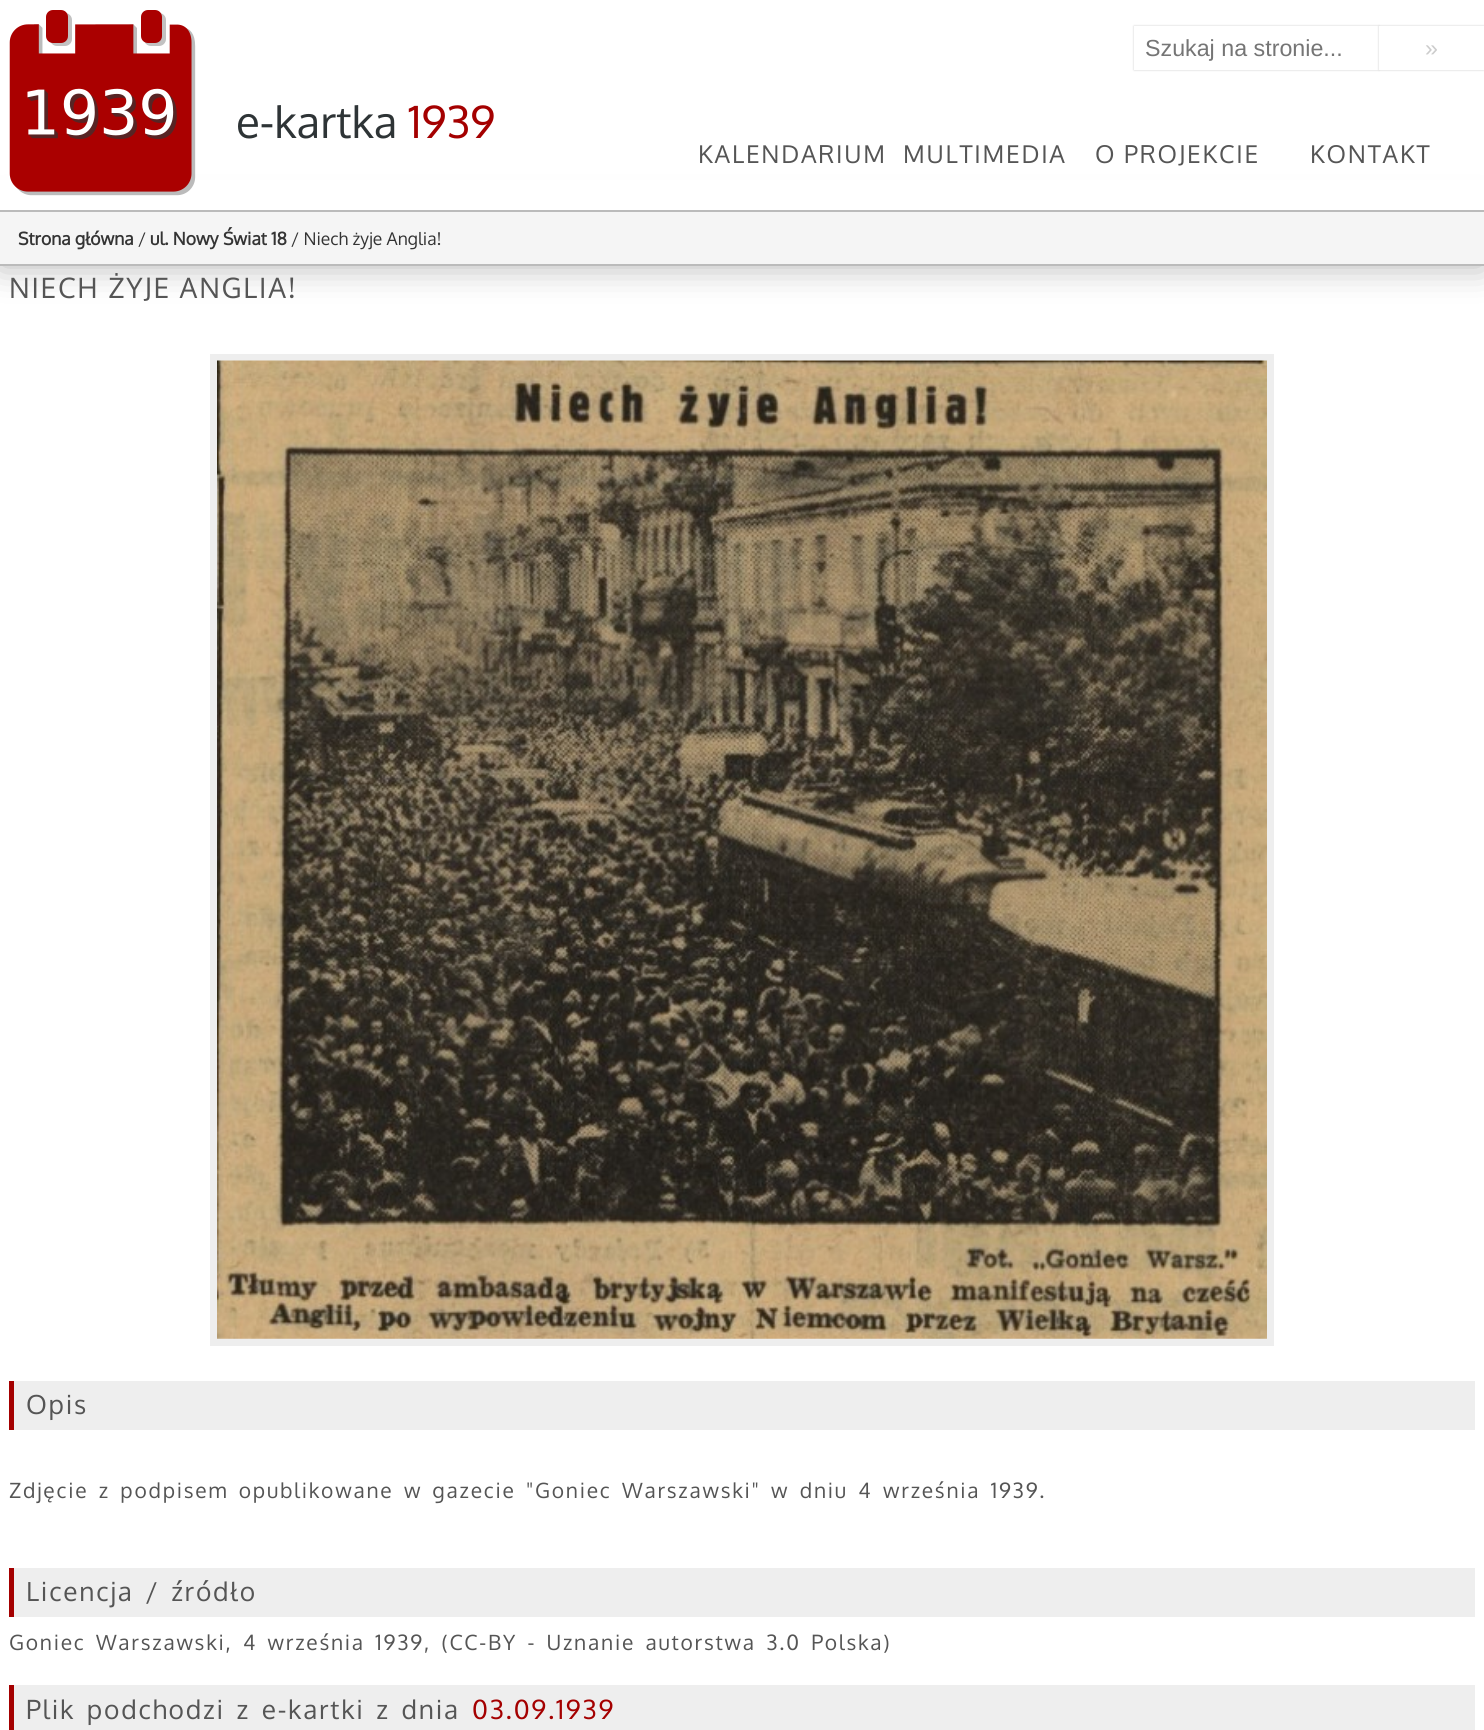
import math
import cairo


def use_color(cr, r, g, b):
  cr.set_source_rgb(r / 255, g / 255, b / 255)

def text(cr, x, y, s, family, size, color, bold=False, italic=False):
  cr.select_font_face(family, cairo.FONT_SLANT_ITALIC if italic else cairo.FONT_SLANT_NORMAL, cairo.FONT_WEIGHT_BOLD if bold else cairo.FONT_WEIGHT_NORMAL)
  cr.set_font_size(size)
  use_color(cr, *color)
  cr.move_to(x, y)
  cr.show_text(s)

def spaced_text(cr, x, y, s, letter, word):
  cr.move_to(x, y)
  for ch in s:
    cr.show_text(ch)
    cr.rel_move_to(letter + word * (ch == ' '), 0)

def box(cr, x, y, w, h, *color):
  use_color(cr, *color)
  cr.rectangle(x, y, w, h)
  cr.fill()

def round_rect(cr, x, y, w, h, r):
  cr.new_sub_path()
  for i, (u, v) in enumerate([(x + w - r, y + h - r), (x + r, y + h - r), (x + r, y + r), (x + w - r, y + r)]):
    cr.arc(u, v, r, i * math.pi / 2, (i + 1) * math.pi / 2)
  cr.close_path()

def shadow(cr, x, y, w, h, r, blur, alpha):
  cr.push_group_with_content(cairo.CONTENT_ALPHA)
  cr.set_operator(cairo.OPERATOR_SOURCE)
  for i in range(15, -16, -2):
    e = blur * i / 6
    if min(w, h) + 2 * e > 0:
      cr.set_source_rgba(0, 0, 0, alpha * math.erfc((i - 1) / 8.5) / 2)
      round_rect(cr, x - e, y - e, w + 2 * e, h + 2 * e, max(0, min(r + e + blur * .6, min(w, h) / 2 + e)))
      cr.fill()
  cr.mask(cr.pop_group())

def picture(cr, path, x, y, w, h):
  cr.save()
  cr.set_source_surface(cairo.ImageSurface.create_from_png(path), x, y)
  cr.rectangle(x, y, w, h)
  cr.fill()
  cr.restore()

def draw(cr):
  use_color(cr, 255, 255, 255)
  cr.paint()
  use_color(cr, 0, 0, 0)
  shadow(cr, 0, 212, 1484, 54, 0, 17.5, 0.3)
  box(cr, 0, 180, 1484, 30, 255, 255, 255)
  box(cr, 0, 210, 1484, 2, 187, 187, 187)
  use_color(cr, 204, 204, 204)
  shadow(cr, 1134, 26, 245, 44, 0, 1, 1)
  box(cr, 1134, 26, 245, 44, 255, 255, 255)
  use_color(cr, 204, 204, 204)
  shadow(cr, 1379, 26, 105, 44, 0, 1, 1)
  box(cr, 1379, 26, 105, 44, 255, 255, 255)
  picture(cr, "img_01.png", 9, 10, 187, 186)
  box(cr, 0, 212, 1484, 52, 245, 245, 245)
  box(cr, 0, 264, 1484, 2, 187, 187, 187)
  box(cr, 210, 354, 1064, 992, 238, 238, 238)
  picture(cr, "img_02.png", 217, 360, 1050, 979)
  box(cr, 14, 1381, 1461, 49, 238, 238, 238)
  box(cr, 9, 1381, 5, 49, 164, 0, 0)
  box(cr, 14, 1568, 1461, 49, 238, 238, 238)
  box(cr, 9, 1568, 5, 49, 164, 0, 0)
  box(cr, 14, 1685, 1461, 45, 238, 238, 238)
  box(cr, 9, 1685, 5, 45, 164, 0, 0)
  text(cr, 1145, 56, "Szukaj na stronie...", "Liberation Sans", 23.25, (117, 117, 117))
  text(cr, 1425, 56, "»", "Liberation Sans", 23.25, (204, 204, 204))
  text(cr, 236, 138, "e-kartka", "Oxygen", 44, (46, 52, 54))
  text(cr, 408, 138, "1939", "Oxygen", 44, (164, 0, 0))
  cr.set_font_size(24.5)
  use_color(cr, 85, 85, 85)
  spaced_text(cr, 698, 163, "KALENDARIUM", 1.75, 0)
  spaced_text(cr, 903, 163, "MULTIMEDIA", 1.75, 0)
  spaced_text(cr, 1095, 163, "O PROJEKCIE", 1.75, 0)
  spaced_text(cr, 1310, 163, "KONTAKT", 1.75, 0)
  text(cr, 18, 245, "Strona główna", "Oxygen", 17.5, (52, 52, 52), bold=True)
  text(cr, 138, 245, "/", "Oxygen", 17.5, (52, 52, 52))
  text(cr, 150, 245, "ul. Nowy Świat 18", "Oxygen", 17.5, (52, 52, 52), bold=True)
  text(cr, 291, 245, "/ Niech żyje Anglia!", "Oxygen", 17.5, (52, 52, 52))
  cr.set_font_size(28)
  use_color(cr, 85, 85, 85)
  spaced_text(cr, 9, 298, "NIECH ŻYJE ANGLIA!", 1.75, 0)
  cr.set_font_size(26.25)
  spaced_text(cr, 26, 1414, "Opis", 1.75, 0)
  cr.set_font_size(21)
  spaced_text(cr, 9, 1498, "Zdjęcie z podpisem opublikowane w gazecie \"Goniec Warszawski\" w dniu 4 września 1939.", 1.75, 3.5)
  cr.set_font_size(26.25)
  spaced_text(cr, 26, 1601, "Licencja / źródło", 1.75, 3.5)
  cr.set_font_size(21)
  spaced_text(cr, 9, 1650, "Goniec Warszawski, 4 września 1939, (CC-BY - Uznanie autorstwa 3.0 Polska)", 1.75, 3.5)
  cr.set_font_size(26.25)
  spaced_text(cr, 26, 1719, "Plik podchodzi z e-kartki z dnia", 1.75, 3.5)
  use_color(cr, 164, 0, 0)
  spaced_text(cr, 472, 1719, "03.09.1939", 1.75, 0)


surface = cairo.ImageSurface(cairo.FORMAT_RGB24, 1484, 1730)
cr = cairo.Context(surface)
options = cairo.FontOptions()
options.set_hint_metrics(cairo.HINT_METRICS_OFF)
options.set_hint_style(cairo.HINT_STYLE_NONE)
cr.set_font_options(options)
cr.set_miter_limit(4)
draw(cr)
surface.write_to_png("out.png")
